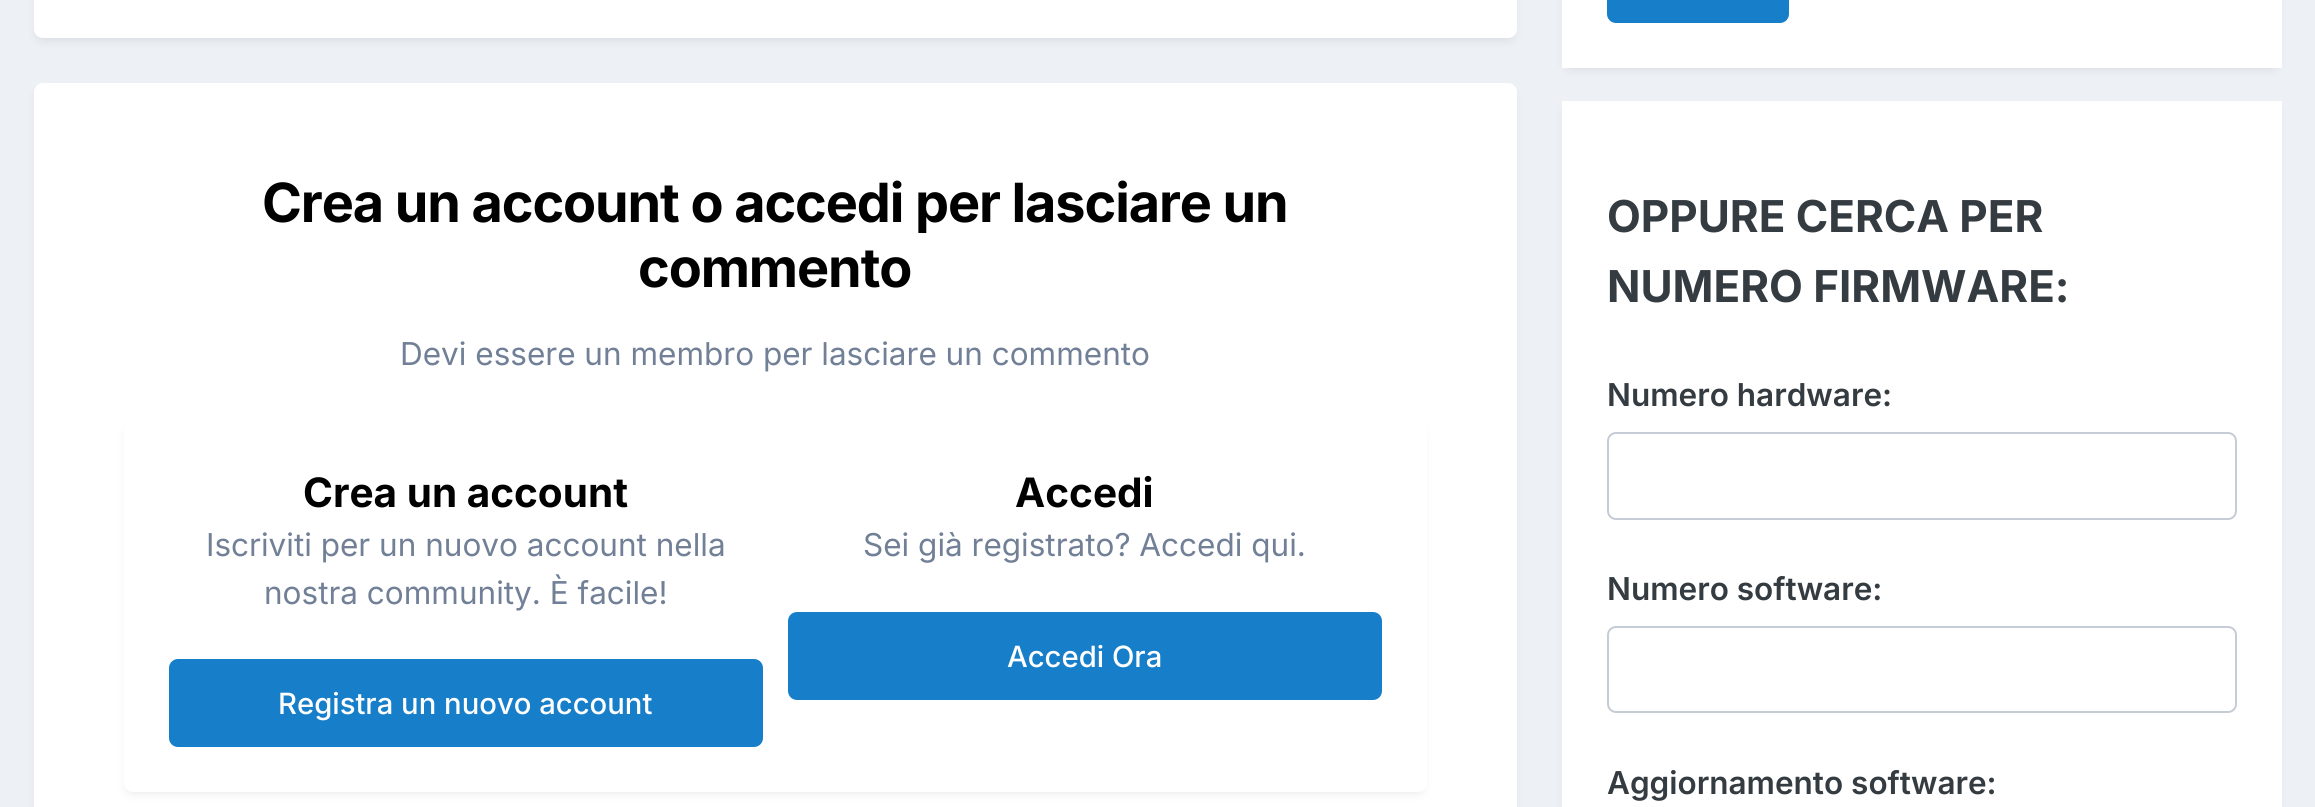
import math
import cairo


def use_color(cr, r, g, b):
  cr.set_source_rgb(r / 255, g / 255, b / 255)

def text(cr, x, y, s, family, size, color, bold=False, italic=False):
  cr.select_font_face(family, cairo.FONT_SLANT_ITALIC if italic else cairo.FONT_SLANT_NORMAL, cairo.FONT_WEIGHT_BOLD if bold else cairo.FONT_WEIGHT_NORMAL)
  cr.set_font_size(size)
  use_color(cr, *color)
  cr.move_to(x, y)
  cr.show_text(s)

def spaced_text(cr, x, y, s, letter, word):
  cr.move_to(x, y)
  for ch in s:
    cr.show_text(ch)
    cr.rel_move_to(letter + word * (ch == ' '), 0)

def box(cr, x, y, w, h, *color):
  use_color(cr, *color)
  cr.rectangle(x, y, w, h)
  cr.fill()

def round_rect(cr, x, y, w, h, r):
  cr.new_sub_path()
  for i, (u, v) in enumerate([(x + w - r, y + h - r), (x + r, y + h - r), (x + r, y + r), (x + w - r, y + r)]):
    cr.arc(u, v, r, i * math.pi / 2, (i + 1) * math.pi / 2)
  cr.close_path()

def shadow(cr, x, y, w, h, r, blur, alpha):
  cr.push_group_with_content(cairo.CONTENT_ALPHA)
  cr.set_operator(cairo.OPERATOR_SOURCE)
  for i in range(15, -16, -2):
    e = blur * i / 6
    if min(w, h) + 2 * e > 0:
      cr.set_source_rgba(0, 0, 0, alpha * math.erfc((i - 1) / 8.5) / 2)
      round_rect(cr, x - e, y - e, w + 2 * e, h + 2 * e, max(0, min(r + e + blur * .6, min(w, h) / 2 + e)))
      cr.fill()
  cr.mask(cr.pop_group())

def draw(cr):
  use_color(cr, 237, 240, 244)
  cr.paint()
  use_color(cr, 45, 55, 72)
  shadow(cr, 36, -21, 1478, 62, 7, 4.5, 0.1)
  use_color(cr, 255, 255, 255)
  round_rect(cr, 34, -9, 1483, 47, 9)
  cr.fill()
  use_color(cr, 45, 55, 72)
  shadow(cr, 36, 90, 1478, 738, 7, 4.5, 0.1)
  use_color(cr, 255, 255, 255)
  round_rect(cr, 34, 83, 1483, 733, 9)
  cr.fill()
  use_color(cr, 45, 55, 72)
  shadow(cr, 126, 428, 1298, 366, 7, 4.5, 0.1)
  use_color(cr, 255, 255, 255)
  round_rect(cr, 124, 421, 1303, 371, 9)
  cr.fill()
  use_color(cr, 23, 126, 201)
  round_rect(cr, 169, 659, 594, 88, 9)
  cr.fill()
  round_rect(cr, 788, 612, 594, 88, 9)
  cr.fill()
  use_color(cr, 45, 55, 72)
  shadow(cr, 1564, -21, 715, 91, 7, 4.5, 0.1)
  box(cr, 1562, 0, 720, 68, 255, 255, 255)
  use_color(cr, 23, 126, 201)
  round_rect(cr, 1607, -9, 182, 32, 9)
  cr.fill()
  use_color(cr, 45, 55, 72)
  shadow(cr, 1564, 108, 715, 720, 7, 4.5, 0.1)
  box(cr, 1562, 101, 720, 706, 255, 255, 255)
  round_rect(cr, 1608, 433, 628, 86, 8)
  use_color(cr, 198, 204, 213)
  cr.stroke()
  round_rect(cr, 1608, 627, 628, 85, 8)
  cr.stroke()
  cr.select_font_face("Inter", cairo.FONT_SLANT_NORMAL, cairo.FONT_WEIGHT_BOLD)
  cr.set_font_size(54)
  use_color(cr, 0, 0, 0)
  spaced_text(cr, 262, 222, "Crea un account o accedi per lasciare un", -1.1, 0)
  spaced_text(cr, 638, 287, "commento", -1.1, 0)
  text(cr, 400, 365, "Devi essere un membro per lasciare un commento", "Inter", 31.5, (113, 128, 150))
  text(cr, 303, 507, "Crea un account", "Inter", 40.5, (0, 0, 0), bold=True)
  text(cr, 206, 556, "Iscriviti per un nuovo account nella", "Inter", 31.5, (113, 128, 150))
  text(cr, 264, 604, "nostra community. È facile!", "Inter", 31.5, (113, 128, 150))
  text(cr, 278, 714, "Registra un nuovo account", "Inter Medium", 29.25, (255, 255, 255))
  text(cr, 1015, 507, "Accedi", "Inter", 40.5, (0, 0, 0), bold=True)
  text(cr, 863, 556, "Sei già registrato? Accedi qui.", "Inter", 31.5, (113, 128, 150))
  text(cr, 1007, 667, "Accedi Ora", "Inter Medium", 29.25, (255, 255, 255))
  text(cr, 1607, 232, "OPPURE CERCA PER", "Inter", 43.9, (53, 60, 65), bold=True)
  text(cr, 1607, 302, "NUMERO FIRMWARE:", "Inter", 43.9, (53, 60, 65), bold=True)
  text(cr, 1607, 406, "Numero hardware:", "Inter SemiBold", 31.5, (53, 60, 65))
  text(cr, 1607, 600, "Numero software:", "Inter SemiBold", 31.5, (53, 60, 65))
  text(cr, 1607, 794, "Aggiornamento software:", "Inter SemiBold", 31.5, (53, 60, 65))


surface = cairo.ImageSurface(cairo.FORMAT_RGB24, 2315, 807)
cr = cairo.Context(surface)
options = cairo.FontOptions()
options.set_hint_metrics(cairo.HINT_METRICS_OFF)
options.set_hint_style(cairo.HINT_STYLE_NONE)
cr.set_font_options(options)
cr.set_miter_limit(4)
draw(cr)
surface.write_to_png("out.png")
